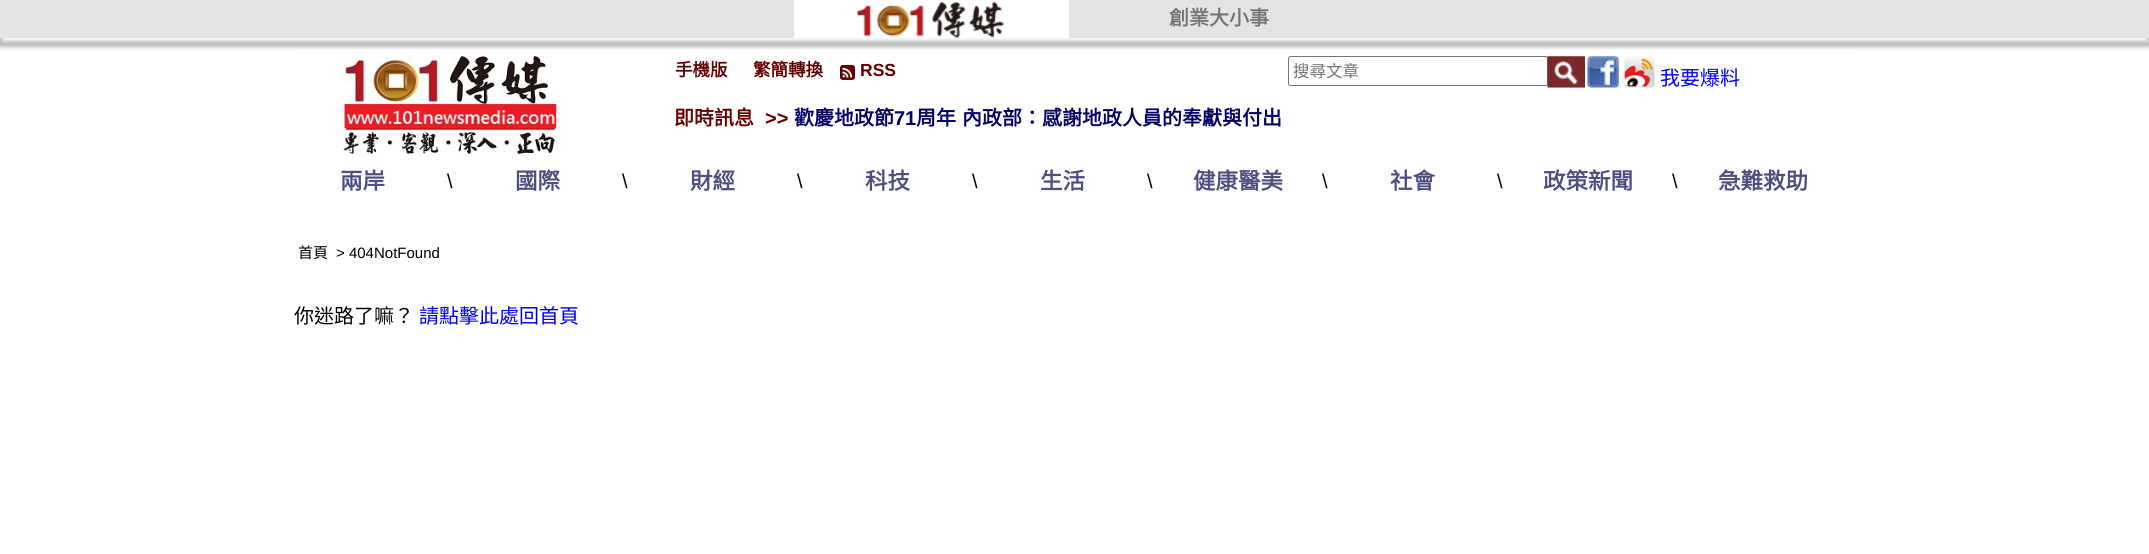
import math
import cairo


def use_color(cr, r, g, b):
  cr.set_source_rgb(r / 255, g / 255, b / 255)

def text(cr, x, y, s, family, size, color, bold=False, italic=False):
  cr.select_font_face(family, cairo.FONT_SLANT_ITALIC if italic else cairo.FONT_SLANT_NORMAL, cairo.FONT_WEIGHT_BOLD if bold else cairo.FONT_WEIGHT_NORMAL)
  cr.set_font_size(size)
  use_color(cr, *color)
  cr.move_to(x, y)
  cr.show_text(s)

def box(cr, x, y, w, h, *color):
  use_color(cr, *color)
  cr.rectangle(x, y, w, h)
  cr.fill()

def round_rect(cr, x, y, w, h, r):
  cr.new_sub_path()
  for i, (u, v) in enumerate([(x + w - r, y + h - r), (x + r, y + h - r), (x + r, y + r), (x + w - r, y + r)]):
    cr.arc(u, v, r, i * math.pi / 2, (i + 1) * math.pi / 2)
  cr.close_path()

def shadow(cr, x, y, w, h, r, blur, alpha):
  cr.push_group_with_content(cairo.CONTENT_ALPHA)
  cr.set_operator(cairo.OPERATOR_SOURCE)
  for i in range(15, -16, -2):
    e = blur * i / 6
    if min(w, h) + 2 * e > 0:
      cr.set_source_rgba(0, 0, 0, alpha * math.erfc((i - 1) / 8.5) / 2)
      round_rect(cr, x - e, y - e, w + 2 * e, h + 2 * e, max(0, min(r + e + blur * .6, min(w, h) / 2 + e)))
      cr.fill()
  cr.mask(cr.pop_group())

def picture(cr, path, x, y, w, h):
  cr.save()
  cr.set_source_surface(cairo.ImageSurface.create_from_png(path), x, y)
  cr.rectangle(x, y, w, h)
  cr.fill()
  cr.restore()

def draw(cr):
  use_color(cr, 255, 255, 255)
  cr.paint()
  cr.save()
  cr.set_fill_rule(cairo.FILL_RULE_EVEN_ODD)
  cr.new_path()
  cr.move_to(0, 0)
  cr.line_to(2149, 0)
  cr.line_to(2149, 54)
  cr.line_to(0, 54)
  cr.close_path()
  cr.move_to(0, 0)
  cr.line_to(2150, 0)
  cr.line_to(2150, 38)
  cr.line_to(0, 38)
  cr.close_path()
  cr.clip()
  use_color(cr, 0, 0, 0)
  shadow(cr, 0, 6, 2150, 38, 0, 3, 1)
  use_color(cr, 255, 255, 255)
  shadow(cr, 0, 6, 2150, 38, 0, 3, 1)
  cr.restore()
  cr.set_source_rgba(0.647, 0.647, 0.647, 0.3)
  cr.rectangle(0, 0, 2149, 38)
  cr.fill()
  box(cr, 794, 0, 275, 38, 255, 255, 255)
  picture(cr, "img_01.png", 857, 2, 147, 36)
  box(cr, 294, 50, 1562, 1, 255, 255, 255)
  picture(cr, "img_02.png", 343, 56, 214, 100)
  picture(cr, "img_03.png", 840, 65, 15, 15)
  round_rect(cr, 1288.5, 56.5, 259, 29, 2)
  use_color(cr, 118, 118, 118)
  cr.set_line_width(1)
  cr.stroke()
  box(cr, 1548, 56, 37, 32, 239, 239, 239)
  picture(cr, "img_04.png", 1547, 56, 38, 32)
  picture(cr, "img_05.png", 1587, 56, 32, 32)
  picture(cr, "img_06.png", 1623, 56, 32, 32)
  text(cr, 1169, 25, "創業大小事", "Noto Sans CJK TC", 20, (117, 117, 117), bold=True)
  text(cr, 675, 76, "手機版", "Noto Sans CJK TC", 17.5, (101, 0, 0), bold=True)
  text(cr, 753, 76, "繁簡轉換", "Noto Sans CJK TC", 17.5, (101, 0, 0), bold=True)
  text(cr, 860, 76, "RSS", "Liberation Sans", 17.5, (101, 0, 0), bold=True)
  text(cr, 1293, 77, "搜尋文章", "Noto Sans CJK TC", 16.5, (117, 117, 117))
  text(cr, 1660, 85, "我要爆料", "Noto Sans CJK TC", 20, (0, 0, 255))
  text(cr, 674, 125, "即時訊息", "Noto Sans CJK TC", 20, (101, 0, 0), bold=True)
  text(cr, 765, 125, ">>", "Liberation Sans", 20, (101, 0, 0), bold=True)
  text(cr, 794, 125, "歡慶地政節", "Noto Sans CJK TC", 20, (0, 0, 101), bold=True)
  text(cr, 894, 125, "71", "Liberation Sans", 20, (0, 0, 101), bold=True)
  text(cr, 916, 125, "周年", "Noto Sans CJK TC", 20, (0, 0, 101), bold=True)
  text(cr, 962, 125, "內政部：感謝地政人員的奉獻與付出", "Noto Sans CJK TC", 20, (0, 0, 101), bold=True)
  text(cr, 340, 189, "兩岸", "Noto Sans CJK TC", 22.5, (79, 78, 128), bold=True)
  text(cr, 447, 188, "\\", "Liberation Sans", 20, (0, 0, 0))
  text(cr, 515, 189, "國際", "Noto Sans CJK TC", 22.5, (79, 78, 128), bold=True)
  text(cr, 622, 188, "\\", "Liberation Sans", 20, (0, 0, 0))
  text(cr, 690, 189, "財經", "Noto Sans CJK TC", 22.5, (79, 78, 128), bold=True)
  text(cr, 797, 188, "\\", "Liberation Sans", 20, (0, 0, 0))
  text(cr, 865, 189, "科技", "Noto Sans CJK TC", 22.5, (79, 78, 128), bold=True)
  text(cr, 972, 188, "\\", "Liberation Sans", 20, (0, 0, 0))
  text(cr, 1040, 189, "生活", "Noto Sans CJK TC", 22.5, (79, 78, 128), bold=True)
  text(cr, 1147, 188, "\\", "Liberation Sans", 20, (0, 0, 0))
  text(cr, 1193, 189, "健康醫美", "Noto Sans CJK TC", 22.5, (79, 78, 128), bold=True)
  text(cr, 1322, 188, "\\", "Liberation Sans", 20, (0, 0, 0))
  text(cr, 1390, 189, "社會", "Noto Sans CJK TC", 22.5, (79, 78, 128), bold=True)
  text(cr, 1497, 188, "\\", "Liberation Sans", 20, (0, 0, 0))
  text(cr, 1543, 189, "政策新聞", "Noto Sans CJK TC", 22.5, (79, 78, 128), bold=True)
  text(cr, 1672, 188, "\\", "Liberation Sans", 20, (0, 0, 0))
  text(cr, 1718, 189, "急難救助", "Noto Sans CJK TC", 22.5, (79, 78, 128), bold=True)
  text(cr, 298, 258, "首頁", "Noto Sans CJK TC", 15, (0, 0, 0))
  text(cr, 336, 258, "> 404NotFound", "Liberation Sans", 15, (0, 0, 0))
  text(cr, 294, 323, "你迷路了嘛？", "Noto Sans CJK TC", 20, (0, 0, 0))
  text(cr, 419, 323, "請點擊此處回首頁", "Noto Sans CJK TC", 20, (0, 0, 238))


surface = cairo.ImageSurface(cairo.FORMAT_RGB24, 2149, 554)
cr = cairo.Context(surface)
options = cairo.FontOptions()
options.set_hint_metrics(cairo.HINT_METRICS_OFF)
options.set_hint_style(cairo.HINT_STYLE_NONE)
cr.set_font_options(options)
cr.set_miter_limit(4)
draw(cr)
surface.write_to_png("out.png")
